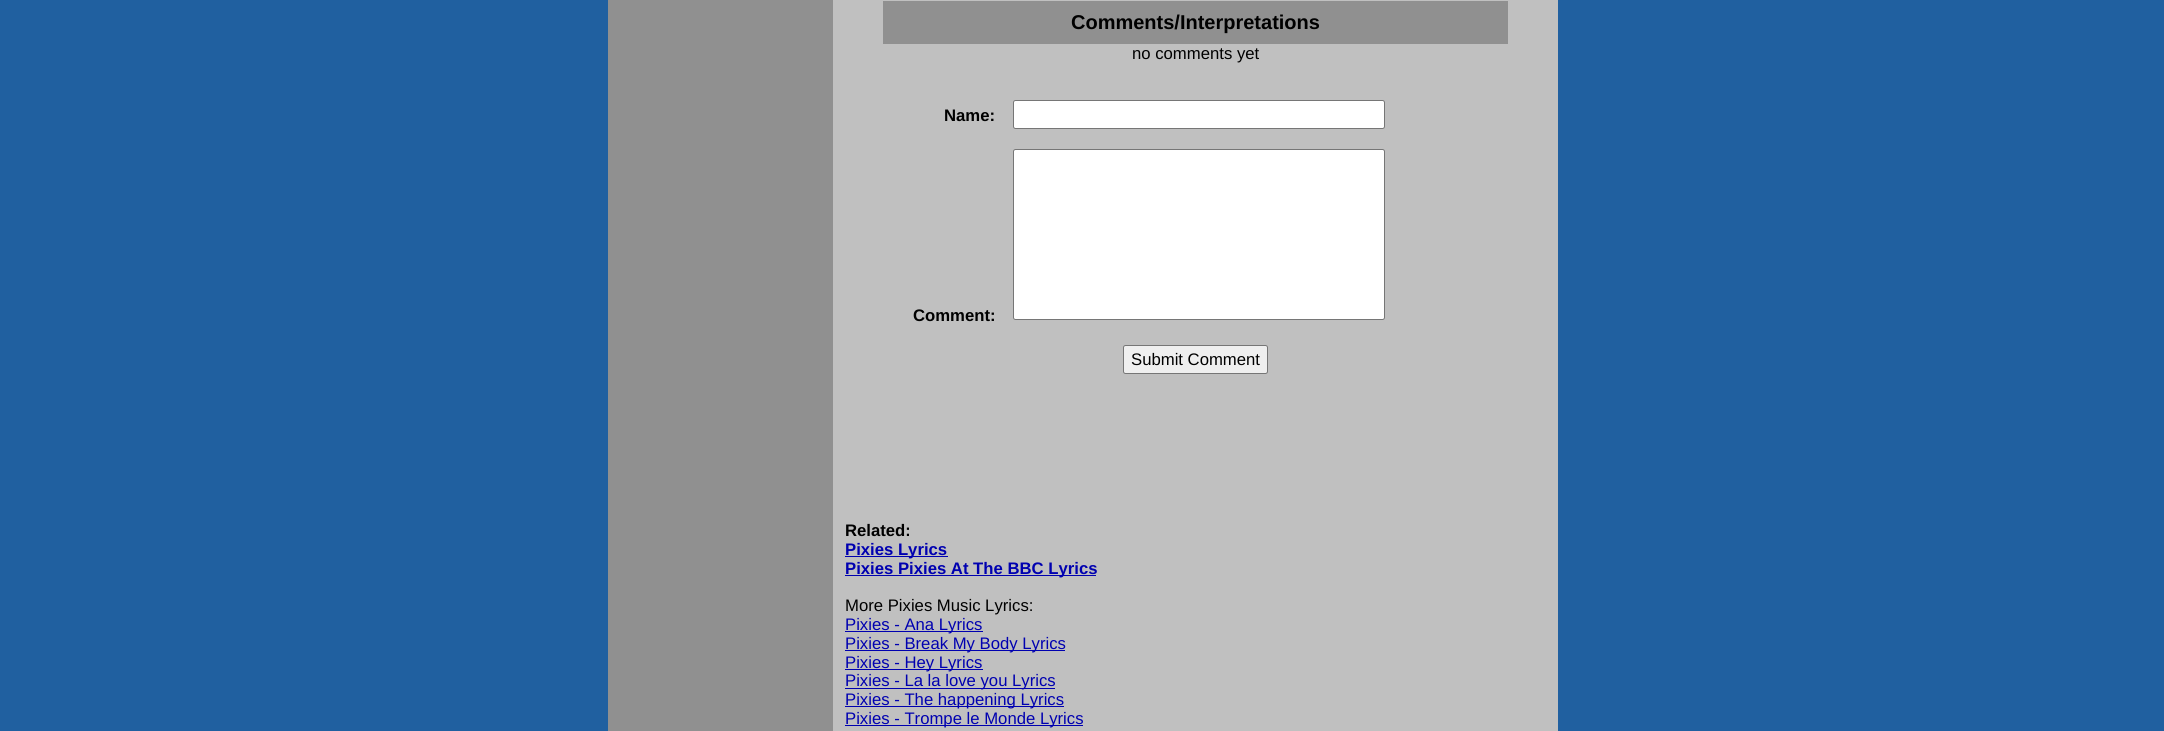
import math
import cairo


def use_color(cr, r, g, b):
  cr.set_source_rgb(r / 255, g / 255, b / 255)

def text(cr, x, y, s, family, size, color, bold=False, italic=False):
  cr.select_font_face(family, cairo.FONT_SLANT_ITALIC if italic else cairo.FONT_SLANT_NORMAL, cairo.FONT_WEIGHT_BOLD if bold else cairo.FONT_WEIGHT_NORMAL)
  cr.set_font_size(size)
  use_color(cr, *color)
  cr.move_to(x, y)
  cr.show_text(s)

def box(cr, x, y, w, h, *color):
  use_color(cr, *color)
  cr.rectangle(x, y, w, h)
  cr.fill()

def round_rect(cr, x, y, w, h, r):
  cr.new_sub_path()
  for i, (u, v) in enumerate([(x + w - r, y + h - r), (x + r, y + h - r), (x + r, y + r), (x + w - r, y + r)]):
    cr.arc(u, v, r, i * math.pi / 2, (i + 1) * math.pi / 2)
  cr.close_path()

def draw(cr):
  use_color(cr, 32, 96, 160)
  cr.paint()
  box(cr, 833, 0, 725, 731, 192, 192, 192)
  box(cr, 608, 0, 225, 731, 144, 144, 144)
  box(cr, 883, 1, 625, 43, 144, 144, 144)
  use_color(cr, 255, 255, 255)
  round_rect(cr, 1013.5, 100.5, 371, 28, 2)
  cr.fill_preserve()
  use_color(cr, 118, 118, 118)
  cr.set_line_width(1)
  cr.stroke()
  use_color(cr, 255, 255, 255)
  round_rect(cr, 1013.5, 149.5, 371, 170, 2)
  cr.fill_preserve()
  use_color(cr, 118, 118, 118)
  cr.stroke()
  use_color(cr, 239, 239, 239)
  round_rect(cr, 1123.5, 345.5, 144, 28, 2)
  cr.fill_preserve()
  use_color(cr, 118, 118, 118)
  cr.stroke()
  box(cr, 845, 556, 103, 1, 0, 0, 176)
  box(cr, 845, 575, 251, 1, 0, 0, 176)
  box(cr, 845, 631, 138, 1, 0, 0, 176)
  box(cr, 845, 650, 220, 1, 0, 0, 176)
  box(cr, 845, 669, 138, 1, 0, 0, 176)
  box(cr, 845, 688, 210, 1, 0, 0, 176)
  box(cr, 845, 706, 219, 1, 0, 0, 176)
  box(cr, 845, 725, 238, 1, 0, 0, 176)
  text(cr, 1071, 29, "Comments/Interpretations", "Liberation Sans", 20, (0, 0, 0), bold=True)
  text(cr, 1132, 59, "no comments yet", "Liberation Sans", 16.7, (0, 0, 0))
  text(cr, 944, 121, "Name:", "Liberation Sans", 16.7, (0, 0, 0), bold=True)
  text(cr, 913, 321, "Comment:", "Liberation Sans", 16.7, (0, 0, 0), bold=True)
  text(cr, 1131, 365, "Submit Comment", "Liberation Sans", 16.7, (0, 0, 0))
  text(cr, 845, 536, "Related:", "Liberation Sans", 16.7, (0, 0, 0), bold=True)
  text(cr, 845, 555, "Pixies Lyrics", "Liberation Sans", 16.7, (0, 0, 176), bold=True)
  text(cr, 845, 574, "Pixies Pixies At The BBC Lyrics", "Liberation Sans", 16.7, (0, 0, 176), bold=True)
  text(cr, 845, 611, "More Pixies Music Lyrics:", "Liberation Sans", 16.7, (0, 0, 0))
  text(cr, 845, 630, "Pixies - Ana Lyrics", "Liberation Sans", 16.7, (0, 0, 176))
  text(cr, 845, 649, "Pixies - Break My Body Lyrics", "Liberation Sans", 16.7, (0, 0, 176))
  text(cr, 845, 668, "Pixies - Hey Lyrics", "Liberation Sans", 16.7, (0, 0, 176))
  text(cr, 845, 686, "Pixies - La la love you Lyrics", "Liberation Sans", 16.7, (0, 0, 176))
  text(cr, 845, 705, "Pixies - The happening Lyrics", "Liberation Sans", 16.7, (0, 0, 176))
  text(cr, 845, 724, "Pixies - Trompe le Monde Lyrics", "Liberation Sans", 16.7, (0, 0, 176))


surface = cairo.ImageSurface(cairo.FORMAT_RGB24, 2164, 731)
cr = cairo.Context(surface)
options = cairo.FontOptions()
options.set_hint_metrics(cairo.HINT_METRICS_OFF)
options.set_hint_style(cairo.HINT_STYLE_NONE)
cr.set_font_options(options)
cr.set_miter_limit(4)
draw(cr)
surface.write_to_png("out.png")
